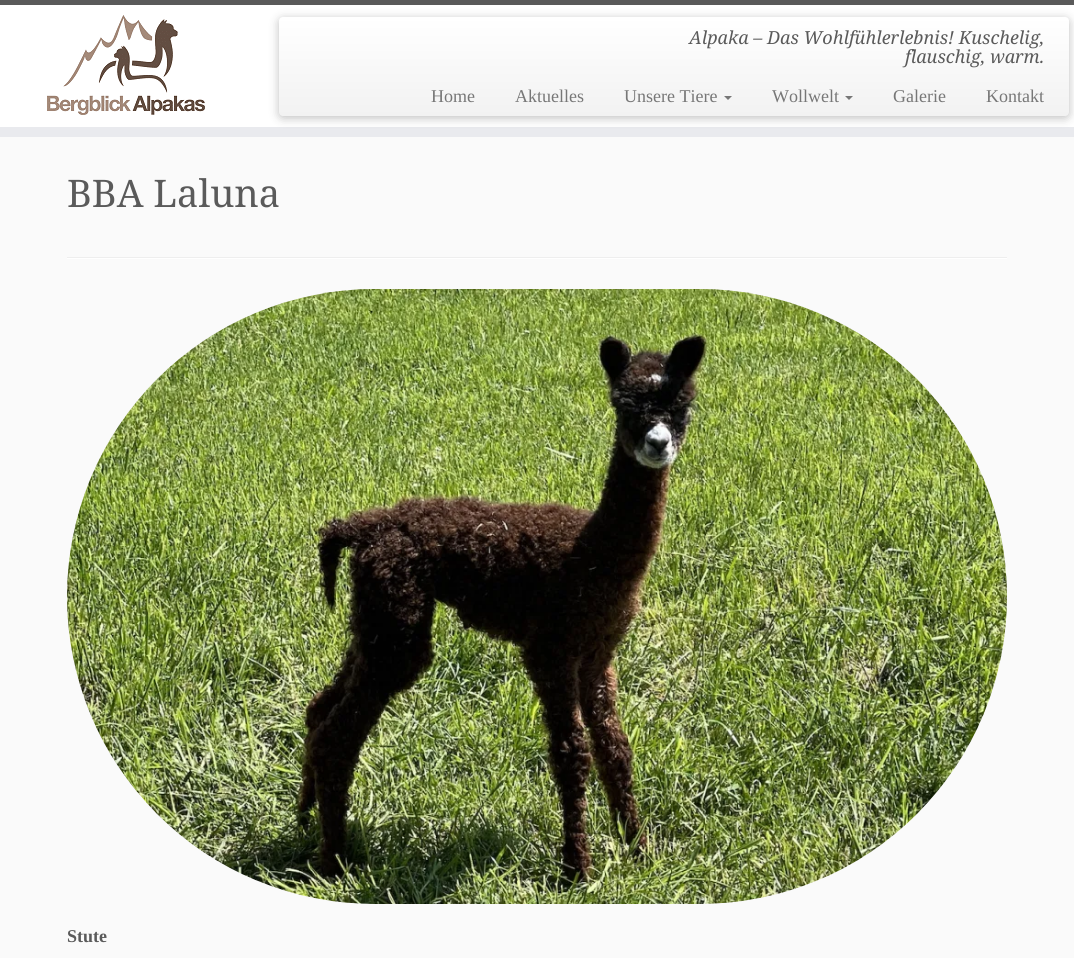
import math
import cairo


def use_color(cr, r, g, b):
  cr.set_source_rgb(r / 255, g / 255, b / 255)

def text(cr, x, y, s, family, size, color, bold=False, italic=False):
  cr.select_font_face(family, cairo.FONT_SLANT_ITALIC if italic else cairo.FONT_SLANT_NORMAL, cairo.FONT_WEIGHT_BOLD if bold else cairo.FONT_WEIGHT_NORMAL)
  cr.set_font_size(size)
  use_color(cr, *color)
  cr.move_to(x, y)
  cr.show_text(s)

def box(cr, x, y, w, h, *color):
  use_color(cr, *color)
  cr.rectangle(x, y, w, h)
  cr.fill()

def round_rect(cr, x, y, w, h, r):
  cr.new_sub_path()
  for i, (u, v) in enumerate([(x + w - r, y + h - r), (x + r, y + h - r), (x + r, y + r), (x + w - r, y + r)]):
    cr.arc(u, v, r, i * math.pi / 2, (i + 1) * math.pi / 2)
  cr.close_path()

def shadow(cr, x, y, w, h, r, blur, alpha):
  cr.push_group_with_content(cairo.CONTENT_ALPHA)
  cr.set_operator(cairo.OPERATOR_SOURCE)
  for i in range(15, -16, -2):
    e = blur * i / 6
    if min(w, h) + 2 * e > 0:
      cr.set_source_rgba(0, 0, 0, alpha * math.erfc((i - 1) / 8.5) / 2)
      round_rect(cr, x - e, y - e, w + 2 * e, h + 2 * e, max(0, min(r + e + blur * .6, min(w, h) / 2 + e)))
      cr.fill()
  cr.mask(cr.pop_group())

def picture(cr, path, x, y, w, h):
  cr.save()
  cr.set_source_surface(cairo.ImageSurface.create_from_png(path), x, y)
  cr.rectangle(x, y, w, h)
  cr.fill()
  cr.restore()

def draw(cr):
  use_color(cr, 250, 250, 250)
  cr.paint()
  box(cr, 0, 5, 1074, 122, 255, 255, 255)
  box(cr, 0, 0, 1074, 5, 90, 90, 90)
  box(cr, 0, 127, 1074, 10, 233, 234, 238)
  picture(cr, "img_01.png", 47, 15, 158, 100)
  use_color(cr, 0, 0, 0)
  shadow(cr, 279, 19, 790, 99, 4, 5, 0.25)
  gradient = cairo.LinearGradient(674, 17, 674, 116)
  gradient.add_color_stop_rgba(0, 1, 1, 1, 1)
  gradient.add_color_stop_rgba(1, 0.949, 0.949, 0.949, 1)
  cr.set_source(gradient)
  round_rect(cr, 279, 17, 790, 99, 4)
  cr.fill()
  use_color(cr, 119, 119, 119)
  cr.new_path()
  cr.move_to(724, 96)
  cr.line_to(732, 96)
  cr.line_to(728, 100)
  cr.close_path()
  cr.fill()
  cr.new_path()
  cr.move_to(845, 96)
  cr.line_to(853, 96)
  cr.line_to(849, 100)
  cr.close_path()
  cr.fill()
  box(cr, 67, 257, 940, 1, 238, 238, 238)
  box(cr, 67, 258, 940, 1, 255, 255, 255)
  picture(cr, "img_02.png", 67, 289, 940, 615)
  text(cr, 689, 44, "Alpaka – Das Wohlfühlerlebnis! Kuschelig,", "Noto Serif", 18, (90, 90, 90), italic=True)
  text(cr, 905, 63, "flauschig, warm.", "Noto Serif", 18, (90, 90, 90), italic=True)
  text(cr, 431, 102, "Home", "Liberation Serif", 18, (119, 119, 119))
  text(cr, 515, 102, "Aktuelles", "Liberation Serif", 18, (119, 119, 119))
  text(cr, 624, 102, "Unsere Tiere", "Liberation Serif", 18, (119, 119, 119))
  text(cr, 772, 102, "Wollwelt", "Liberation Serif", 18, (119, 119, 119))
  text(cr, 893, 102, "Galerie", "Liberation Serif", 18, (119, 119, 119))
  text(cr, 986, 102, "Kontakt", "Liberation Serif", 18, (119, 119, 119))
  text(cr, 67, 207, "BBA Laluna", "Noto Serif", 38, (90, 90, 90))
  text(cr, 67, 942, "Stute", "Liberation Serif", 18, (90, 90, 90), bold=True)


surface = cairo.ImageSurface(cairo.FORMAT_RGB24, 1074, 958)
cr = cairo.Context(surface)
options = cairo.FontOptions()
options.set_hint_metrics(cairo.HINT_METRICS_OFF)
options.set_hint_style(cairo.HINT_STYLE_NONE)
cr.set_font_options(options)
cr.set_miter_limit(4)
draw(cr)
surface.write_to_png("out.png")
